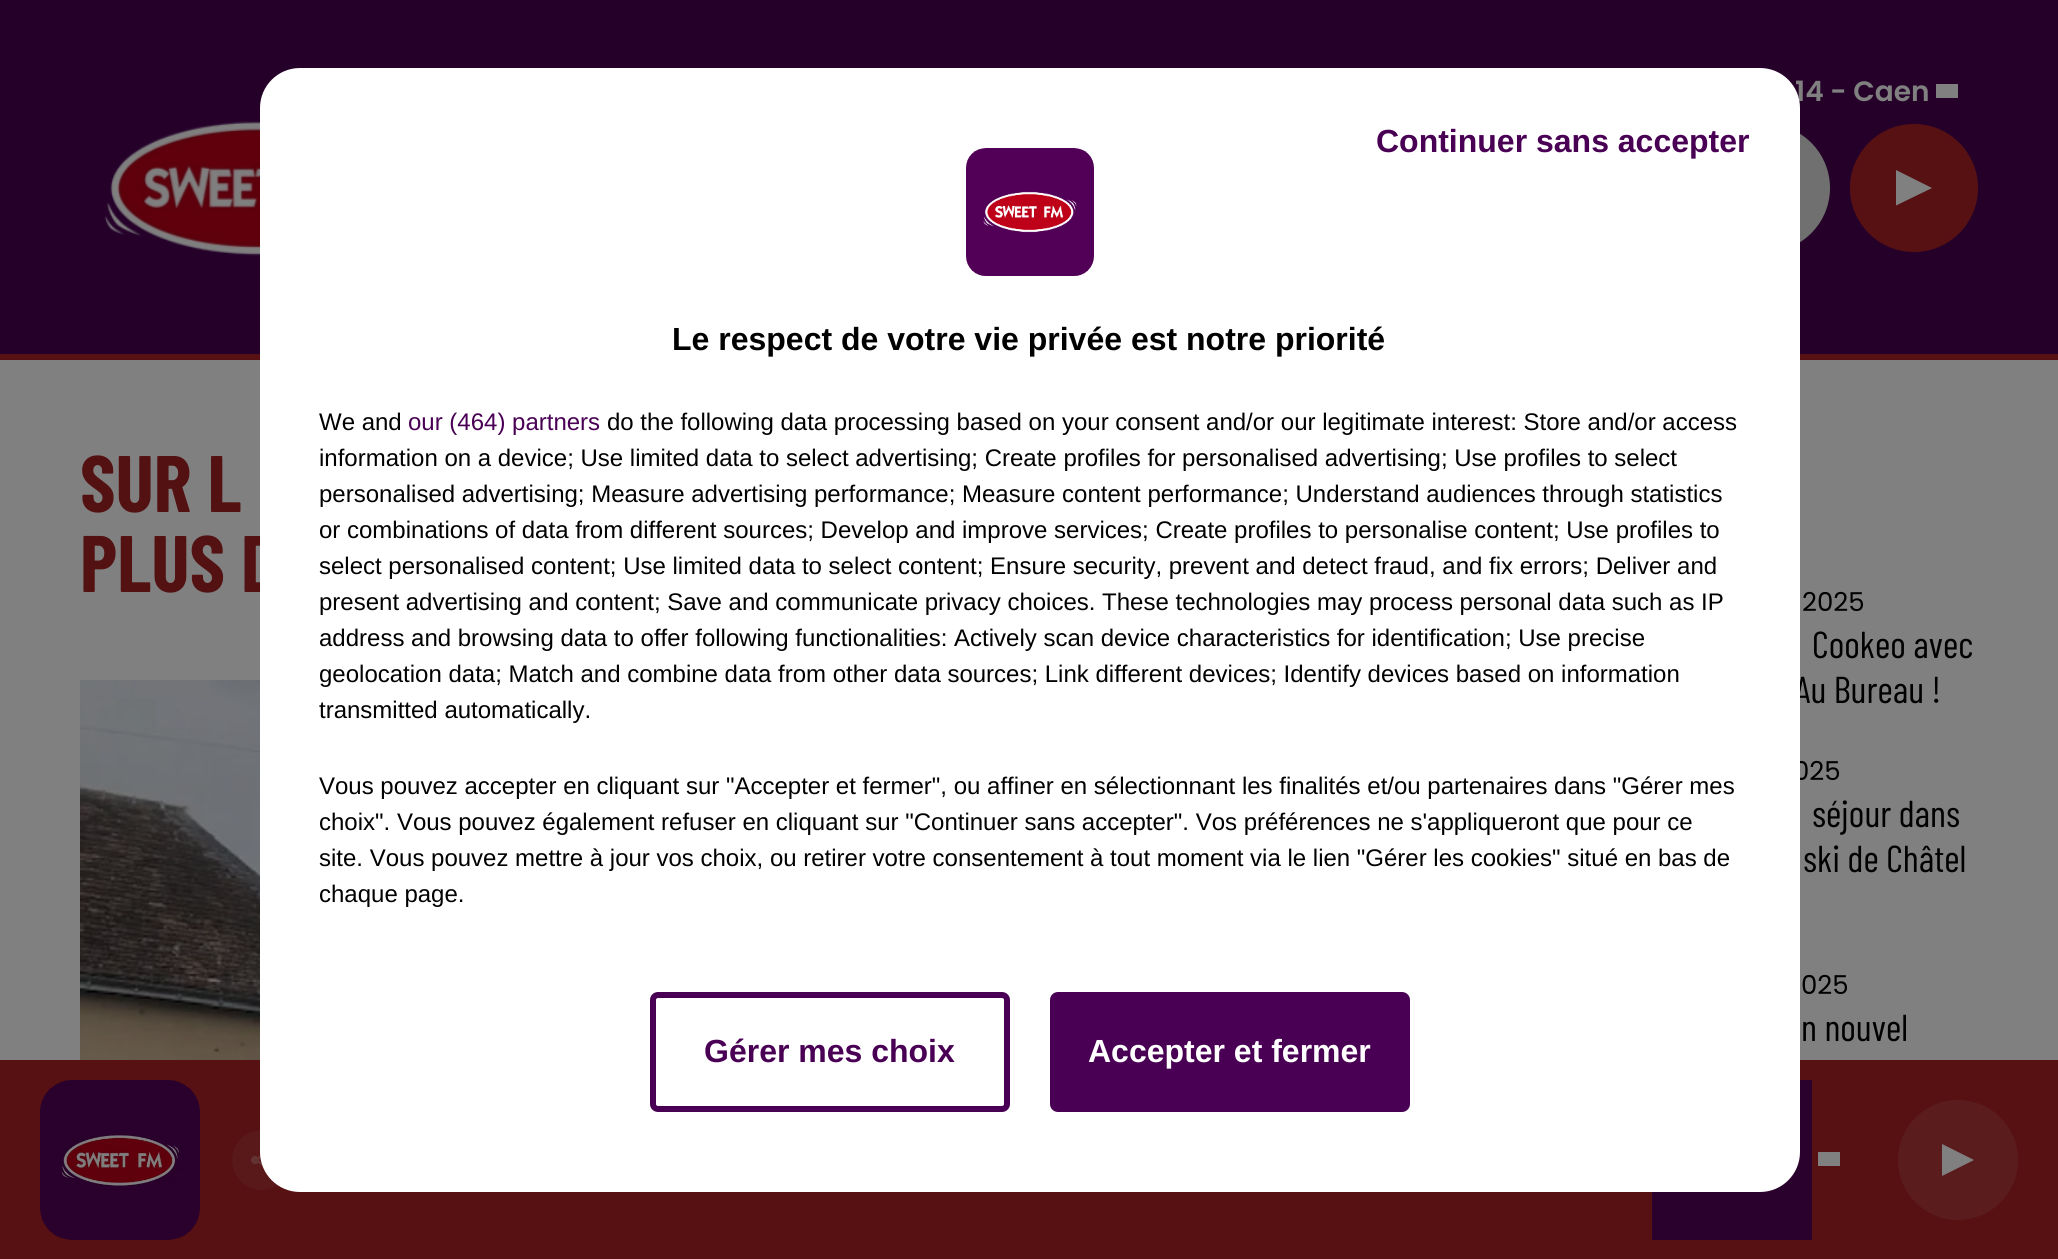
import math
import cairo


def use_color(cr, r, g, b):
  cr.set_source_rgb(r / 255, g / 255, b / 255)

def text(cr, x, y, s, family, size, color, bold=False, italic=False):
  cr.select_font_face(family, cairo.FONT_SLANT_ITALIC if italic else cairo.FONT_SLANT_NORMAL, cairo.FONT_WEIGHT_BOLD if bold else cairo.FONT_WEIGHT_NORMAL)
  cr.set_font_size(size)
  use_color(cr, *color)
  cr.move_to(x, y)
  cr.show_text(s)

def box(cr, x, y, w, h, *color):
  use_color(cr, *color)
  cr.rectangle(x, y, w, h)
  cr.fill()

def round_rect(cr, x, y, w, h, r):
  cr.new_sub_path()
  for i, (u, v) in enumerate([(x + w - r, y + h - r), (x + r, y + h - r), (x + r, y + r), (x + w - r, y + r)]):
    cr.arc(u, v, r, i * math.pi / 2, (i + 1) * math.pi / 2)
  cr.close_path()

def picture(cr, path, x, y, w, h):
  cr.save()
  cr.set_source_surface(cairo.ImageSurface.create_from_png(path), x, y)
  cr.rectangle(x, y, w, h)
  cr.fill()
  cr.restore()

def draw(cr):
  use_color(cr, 128, 128, 128)
  cr.paint()
  box(cr, 0, 0, 2058, 354, 37, 1, 42)
  box(cr, 0, 354, 2058, 6, 87, 17, 18)
  box(cr, 1936, 84, 22, 14, 128, 128, 128)
  use_color(cr, 112, 112, 112)
  cr.arc(1766, 188, 62, 0, 2 * math.pi)
  cr.fill_preserve()
  cr.set_line_width(4)
  cr.stroke()
  use_color(cr, 87, 17, 18)
  cr.arc(1914, 188, 62, 0, 2 * math.pi)
  cr.fill_preserve()
  cr.stroke()
  use_color(cr, 128, 128, 128)
  cr.new_path()
  cr.move_to(1932, 188)
  cr.line_to(1896, 205.5)
  cr.line_to(1896, 170)
  cr.close_path()
  cr.fill()
  picture(cr, "img_01.png", 104, 121, 156, 135)
  picture(cr, "img_02.png", 80, 680, 180, 380)
  box(cr, 0, 1060, 2058, 199, 87, 17, 18)
  picture(cr, "img_03.png", 40, 1080, 160, 160)
  use_color(cr, 89, 24, 25)
  cr.arc(262, 1160, 30, 0, 2 * math.pi)
  cr.fill()
  picture(cr, "img_04.png", 251, 1155, 12, 11)
  picture(cr, "img_05.png", 1651, 1080, 161, 160)
  box(cr, 1818, 1152, 22, 14, 128, 128, 128)
  use_color(cr, 91, 28, 29)
  cr.arc(1958, 1160, 60, 0, 2 * math.pi)
  cr.fill()
  use_color(cr, 128, 128, 128)
  cr.new_path()
  cr.move_to(1974, 1160)
  cr.line_to(1942, 1176)
  cr.line_to(1942, 1144)
  cr.close_path()
  cr.fill()
  text(cr, 1795, 101, "14 - Caen", "Poppins SemiBold", 28, (128, 128, 128))
  text(cr, 80, 512, "SUR L", "Barlow Condensed", 80, (83, 17, 18), bold=True)
  text(cr, 80, 592, "PLUS D", "Barlow Condensed", 80, (83, 17, 18), bold=True)
  text(cr, 1802, 611, "2025", "Poppins", 26, (0, 0, 0))
  text(cr, 1812, 658, "Cookeo avec", "Barlow Condensed", 37.5, (0, 0, 0))
  text(cr, 1795, 703, "Au Bureau !", "Barlow Condensed", 37.5, (0, 0, 0))
  text(cr, 1793, 780, "025", "Poppins", 26, (0, 0, 0))
  text(cr, 1812, 827, "séjour dans", "Barlow Condensed", 37.5, (0, 0, 0))
  text(cr, 1803, 872, "ski de Châtel", "Barlow Condensed", 37.5, (0, 0, 0))
  text(cr, 1801, 994, "025", "Poppins", 26, (0, 0, 0))
  text(cr, 1801, 1041, "n nouvel", "Barlow Condensed", 37.5, (0, 0, 0))
  use_color(cr, 255, 255, 255)
  round_rect(cr, 260, 68, 1540, 1124, 40)
  cr.fill()
  text(cr, 1376, 152, "Continuer sans accepter", "Liberation Sans", 32, (73, 0, 84), bold=True)
  round_rect(cr, 653, 995, 354, 114, 5)
  cr.set_line_width(6)
  cr.stroke()
  text(cr, 704, 1062, "Gérer mes choix", "Liberation Sans", 32, (73, 0, 84), bold=True)
  round_rect(cr, 1053, 995, 354, 114, 5)
  cr.fill_preserve()
  cr.stroke()
  text(cr, 1088, 1062, "Accepter et fermer", "Liberation Sans", 32, (255, 255, 255), bold=True)
  picture(cr, "img_06.png", 966, 148, 128, 128)
  text(cr, 672, 350, "Le respect de votre vie privée est notre priorité", "Liberation Sans", 32, (0, 0, 0), bold=True)
  text(cr, 319, 430, "We and", "Liberation Sans", 24, (0, 0, 0))
  text(cr, 408, 430, "our (464) partners", "Liberation Sans", 24, (73, 0, 84))
  text(cr, 607, 430, "do the following data processing based on your consent and/or our legitimate interest: Store and/or access", "Liberation Sans", 24, (0, 0, 0))
  text(cr, 319, 466, "information on a device; Use limited data to select advertising; Create profiles for personalised advertising; Use profiles to select", "Liberation Sans", 24, (0, 0, 0))
  text(cr, 319, 502, "personalised advertising; Measure advertising performance; Measure content performance; Understand audiences through statistics", "Liberation Sans", 24, (0, 0, 0))
  text(cr, 319, 538, "or combinations of data from different sources; Develop and improve services; Create profiles to personalise content; Use profiles to", "Liberation Sans", 24, (0, 0, 0))
  text(cr, 319, 574, "select personalised content; Use limited data to select content; Ensure security, prevent and detect fraud, and fix errors; Deliver and", "Liberation Sans", 24, (0, 0, 0))
  text(cr, 319, 610, "present advertising and content; Save and communicate privacy choices. These technologies may process personal data such as IP", "Liberation Sans", 24, (0, 0, 0))
  text(cr, 319, 646, "address and browsing data to offer following functionalities: Actively scan device characteristics for identification; Use precise", "Liberation Sans", 24, (0, 0, 0))
  text(cr, 319, 682, "geolocation data; Match and combine data from other data sources; Link different devices; Identify devices based on information", "Liberation Sans", 24, (0, 0, 0))
  text(cr, 319, 718, "transmitted automatically.", "Liberation Sans", 24, (0, 0, 0))
  text(cr, 319, 794, "Vous pouvez accepter en cliquant sur \"Accepter et fermer\", ou affiner en sélectionnant les finalités et/ou partenaires dans \"Gérer mes", "Liberation Sans", 24, (0, 0, 0))
  text(cr, 319, 830, "choix\". Vous pouvez également refuser en cliquant sur \"Continuer sans accepter\". Vos préférences ne s'appliqueront que pour ce", "Liberation Sans", 24, (0, 0, 0))
  text(cr, 319, 866, "site. Vous pouvez mettre à jour vos choix, ou retirer votre consentement à tout moment via le lien \"Gérer les cookies\" situé en bas de", "Liberation Sans", 24, (0, 0, 0))
  text(cr, 319, 902, "chaque page.", "Liberation Sans", 24, (0, 0, 0))


surface = cairo.ImageSurface(cairo.FORMAT_RGB24, 2058, 1259)
cr = cairo.Context(surface)
options = cairo.FontOptions()
options.set_hint_metrics(cairo.HINT_METRICS_OFF)
options.set_hint_style(cairo.HINT_STYLE_NONE)
cr.set_font_options(options)
cr.set_miter_limit(4)
draw(cr)
surface.write_to_png("out.png")
